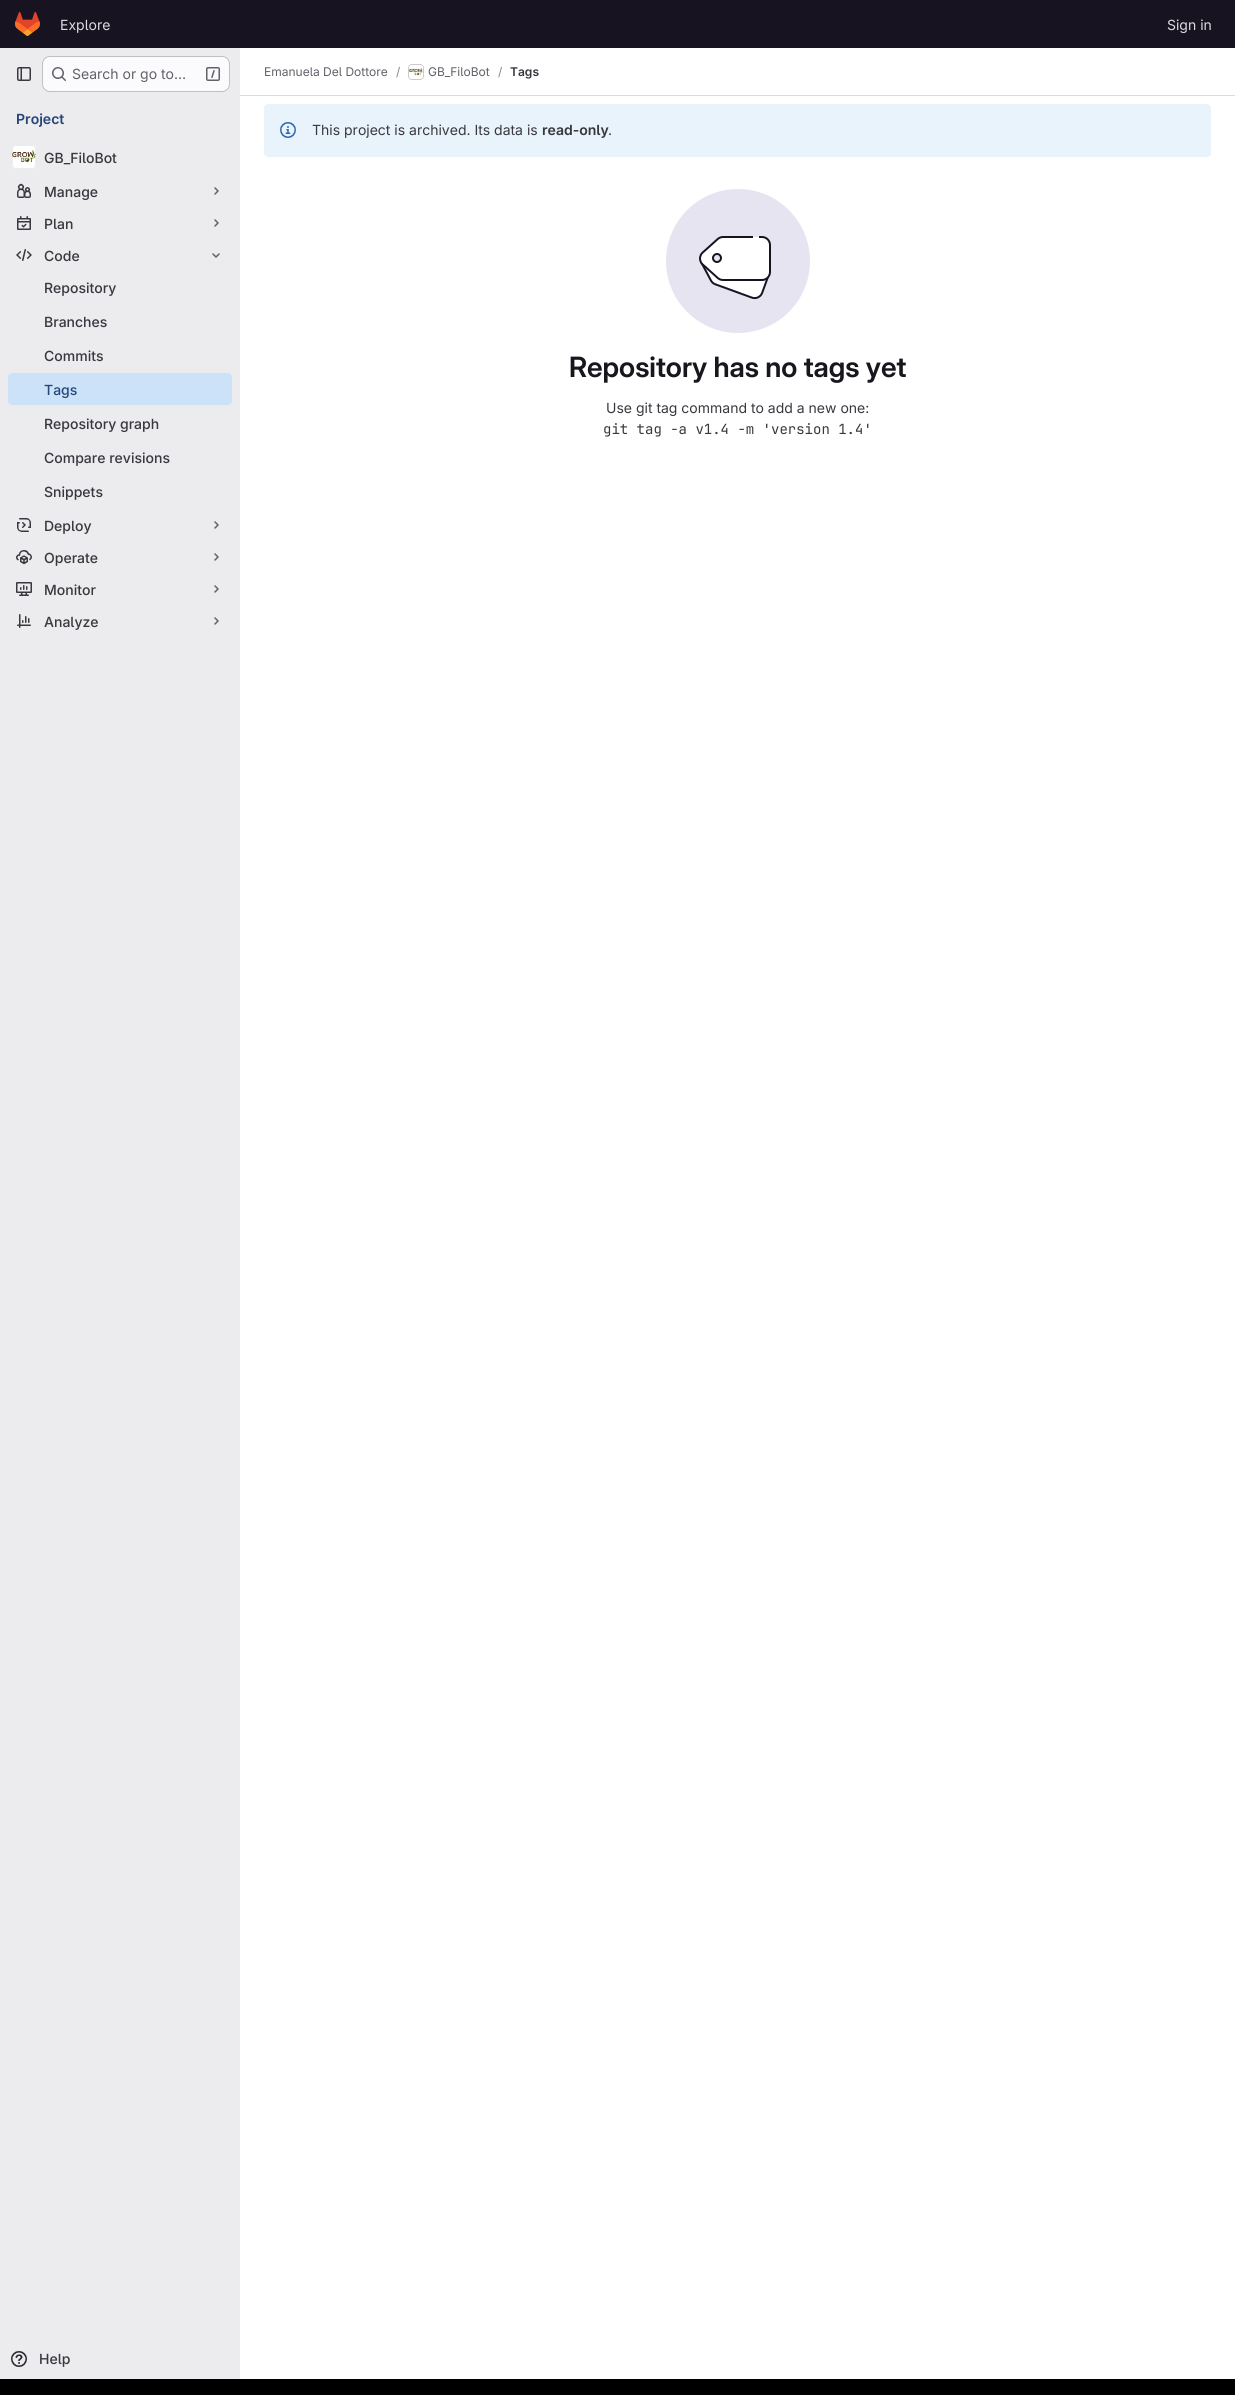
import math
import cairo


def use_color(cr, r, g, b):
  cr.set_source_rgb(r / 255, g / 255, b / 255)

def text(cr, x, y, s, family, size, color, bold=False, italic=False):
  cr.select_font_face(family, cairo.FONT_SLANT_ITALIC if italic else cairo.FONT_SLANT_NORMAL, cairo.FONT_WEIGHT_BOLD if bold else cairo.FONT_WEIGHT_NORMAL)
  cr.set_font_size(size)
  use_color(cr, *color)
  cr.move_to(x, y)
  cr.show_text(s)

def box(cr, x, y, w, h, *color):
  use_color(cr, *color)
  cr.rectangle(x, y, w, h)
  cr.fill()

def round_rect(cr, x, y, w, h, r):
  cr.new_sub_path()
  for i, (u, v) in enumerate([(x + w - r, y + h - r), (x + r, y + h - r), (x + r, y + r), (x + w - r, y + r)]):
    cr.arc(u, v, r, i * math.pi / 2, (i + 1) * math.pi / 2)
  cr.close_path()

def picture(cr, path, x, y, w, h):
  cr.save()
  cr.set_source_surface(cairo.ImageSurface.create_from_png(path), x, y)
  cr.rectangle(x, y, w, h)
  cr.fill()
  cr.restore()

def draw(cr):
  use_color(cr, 255, 255, 255)
  cr.paint()
  box(cr, 0, 0, 1235, 48, 23, 19, 33)
  picture(cr, "img_01.png", 15, 12, 25, 24)
  box(cr, 0, 48, 240, 2331, 236, 236, 239)
  picture(cr, "img_02.png", 17, 67, 14, 14)
  use_color(cr, 251, 250, 253)
  round_rect(cr, 42, 56, 188, 36, 8)
  cr.fill()
  round_rect(cr, 42.5, 56.5, 187, 35, 7.5)
  cr.set_source_rgba(0.02, 0.02, 0.024, 0.24)
  cr.set_line_width(1)
  cr.stroke()
  picture(cr, "img_03.png", 52, 67, 14, 14)
  picture(cr, "img_04.png", 206, 67, 14, 14)
  picture(cr, "img_05.png", 12, 145, 24, 24)
  round_rect(cr, 12.5, 145.5, 23, 23, 3.5)
  cr.set_source_rgba(0.02, 0.02, 0.024, 0.08)
  cr.stroke()
  picture(cr, "img_06.png", 17, 183, 14, 15)
  cr.new_path()
  cr.move_to(215, 188)
  cr.line_to(218, 191)
  cr.line_to(215, 194)
  use_color(cr, 98, 97, 104)
  cr.set_line_width(1.5)
  cr.set_line_cap(cairo.LINE_CAP_ROUND)
  cr.set_line_join(cairo.LINE_JOIN_ROUND)
  cr.stroke()
  picture(cr, "img_07.png", 17, 216, 14, 14)
  cr.new_path()
  cr.move_to(215, 220)
  cr.line_to(218, 223)
  cr.line_to(215, 226)
  cr.stroke()
  picture(cr, "img_08.png", 16, 249, 16, 12)
  cr.new_path()
  cr.move_to(219, 254)
  cr.line_to(216, 257)
  cr.line_to(213, 254)
  cr.stroke()
  use_color(cr, 203, 226, 249)
  round_rect(cr, 8, 373, 224, 32, 4)
  cr.fill()
  picture(cr, "img_09.png", 17, 518, 14, 14)
  cr.new_path()
  cr.move_to(215, 522)
  cr.line_to(218, 525)
  cr.line_to(215, 528)
  use_color(cr, 98, 97, 104)
  cr.stroke()
  picture(cr, "img_10.png", 16, 550, 16, 15)
  cr.new_path()
  cr.move_to(215, 554)
  cr.line_to(218, 557)
  cr.line_to(215, 560)
  cr.stroke()
  picture(cr, "img_11.png", 16, 582, 16, 14)
  cr.new_path()
  cr.move_to(215, 586)
  cr.line_to(218, 589)
  cr.line_to(215, 592)
  cr.stroke()
  picture(cr, "img_12.png", 17, 614, 14, 14)
  cr.new_path()
  cr.move_to(215, 618)
  cr.line_to(218, 621)
  cr.line_to(215, 624)
  cr.stroke()
  picture(cr, "img_13.png", 11, 2351, 16, 16)
  box(cr, 240, 95, 995, 1, 220, 220, 222)
  round_rect(cr, 408.5, 64.5, 15, 15, 3.5)
  cr.set_line_width(1)
  cr.set_line_cap(cairo.LINE_CAP_BUTT)
  cr.set_line_join(cairo.LINE_JOIN_MITER)
  cr.stroke()
  picture(cr, "img_14.png", 409, 65, 14, 14)
  round_rect(cr, 408.5, 64.5, 15, 15, 3.5)
  cr.set_source_rgba(0.02, 0.02, 0.024, 0.08)
  cr.stroke()
  use_color(cr, 233, 243, 252)
  round_rect(cr, 264, 104, 947, 53, 4)
  cr.fill()
  picture(cr, "img_15.png", 280, 122, 16, 16)
  picture(cr, "img_16.png", 666, 189, 144, 144)
  box(cr, 0, 2379, 1235, 16, 0, 0, 0)
  text(cr, 60, 30, "Explore", "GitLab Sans", 14, (220, 220, 222))
  text(cr, 1167, 30, "Sign in", "GitLab Sans", 14, (220, 220, 222))
  text(cr, 72, 79, "Search or go to…", "GitLab Sans", 14, (98, 97, 104))
  text(cr, 16, 124, "Project", "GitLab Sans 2 SemiBold", 14, (40, 71, 121))
  text(cr, 44, 163, "GB_FiloBot", "GitLab Sans Medium", 14, (58, 56, 63))
  text(cr, 44, 197, "Manage", "GitLab Sans Medium", 14, (58, 56, 63))
  text(cr, 44, 229, "Plan", "GitLab Sans Medium", 14, (58, 56, 63))
  text(cr, 44, 261, "Code", "GitLab Sans Medium", 14, (58, 56, 63))
  text(cr, 44, 293, "Repository", "GitLab Sans Medium", 14, (58, 56, 63))
  text(cr, 44, 327, "Branches", "GitLab Sans Medium", 14, (58, 56, 63))
  text(cr, 44, 361, "Commits", "GitLab Sans Medium", 14, (58, 56, 63))
  text(cr, 44, 395, "Tags", "GitLab Sans Medium", 14, (40, 71, 121))
  text(cr, 44, 429, "Repository graph", "GitLab Sans Medium", 14, (58, 56, 63))
  text(cr, 44, 463, "Compare revisions", "GitLab Sans Medium", 14, (58, 56, 63))
  text(cr, 44, 497, "Snippets", "GitLab Sans Medium", 14, (58, 56, 63))
  text(cr, 44, 531, "Deploy", "GitLab Sans Medium", 14, (58, 56, 63))
  text(cr, 44, 563, "Operate", "GitLab Sans Medium", 14, (58, 56, 63))
  text(cr, 44, 595, "Monitor", "GitLab Sans Medium", 14, (58, 56, 63))
  text(cr, 44, 627, "Analyze", "GitLab Sans Medium", 14, (58, 56, 63))
  text(cr, 39, 2364, "Help", "GitLab Sans Medium", 14, (58, 56, 63))
  text(cr, 264, 76, "Emanuela Del Dottore", "GitLab Sans", 12, (98, 97, 104))
  text(cr, 396, 76, "/", "GitLab Sans", 12, (137, 136, 141))
  text(cr, 428, 76, "GB_FiloBot", "GitLab Sans", 12, (98, 97, 104))
  text(cr, 498, 76, "/", "GitLab Sans", 12, (137, 136, 141))
  text(cr, 510, 76, "Tags", "GitLab Sans 2 SemiBold", 12, (58, 56, 63))
  text(cr, 312, 135, "This project is archived. Its data is", "GitLab Sans", 14, (58, 56, 63))
  text(cr, 542, 135, "read-only", "GitLab Sans 2 SemiBold", 14, (58, 56, 63))
  text(cr, 608, 135, ".", "GitLab Sans", 14, (58, 56, 63))
  text(cr, 569, 377, "Repository has no tags yet", "GitLab Sans SemiBold", 28, (24, 23, 29))
  text(cr, 606, 413, "Use git tag command to add a new one:", "GitLab Sans", 14, (58, 56, 63))
  text(cr, 603, 434, "git tag -a v1.4 -m 'version 1.4'", "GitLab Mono", 14, (58, 56, 63))


surface = cairo.ImageSurface(cairo.FORMAT_RGB24, 1235, 2395)
cr = cairo.Context(surface)
options = cairo.FontOptions()
options.set_hint_metrics(cairo.HINT_METRICS_OFF)
options.set_hint_style(cairo.HINT_STYLE_NONE)
cr.set_font_options(options)
cr.set_miter_limit(4)
draw(cr)
surface.write_to_png("out.png")
